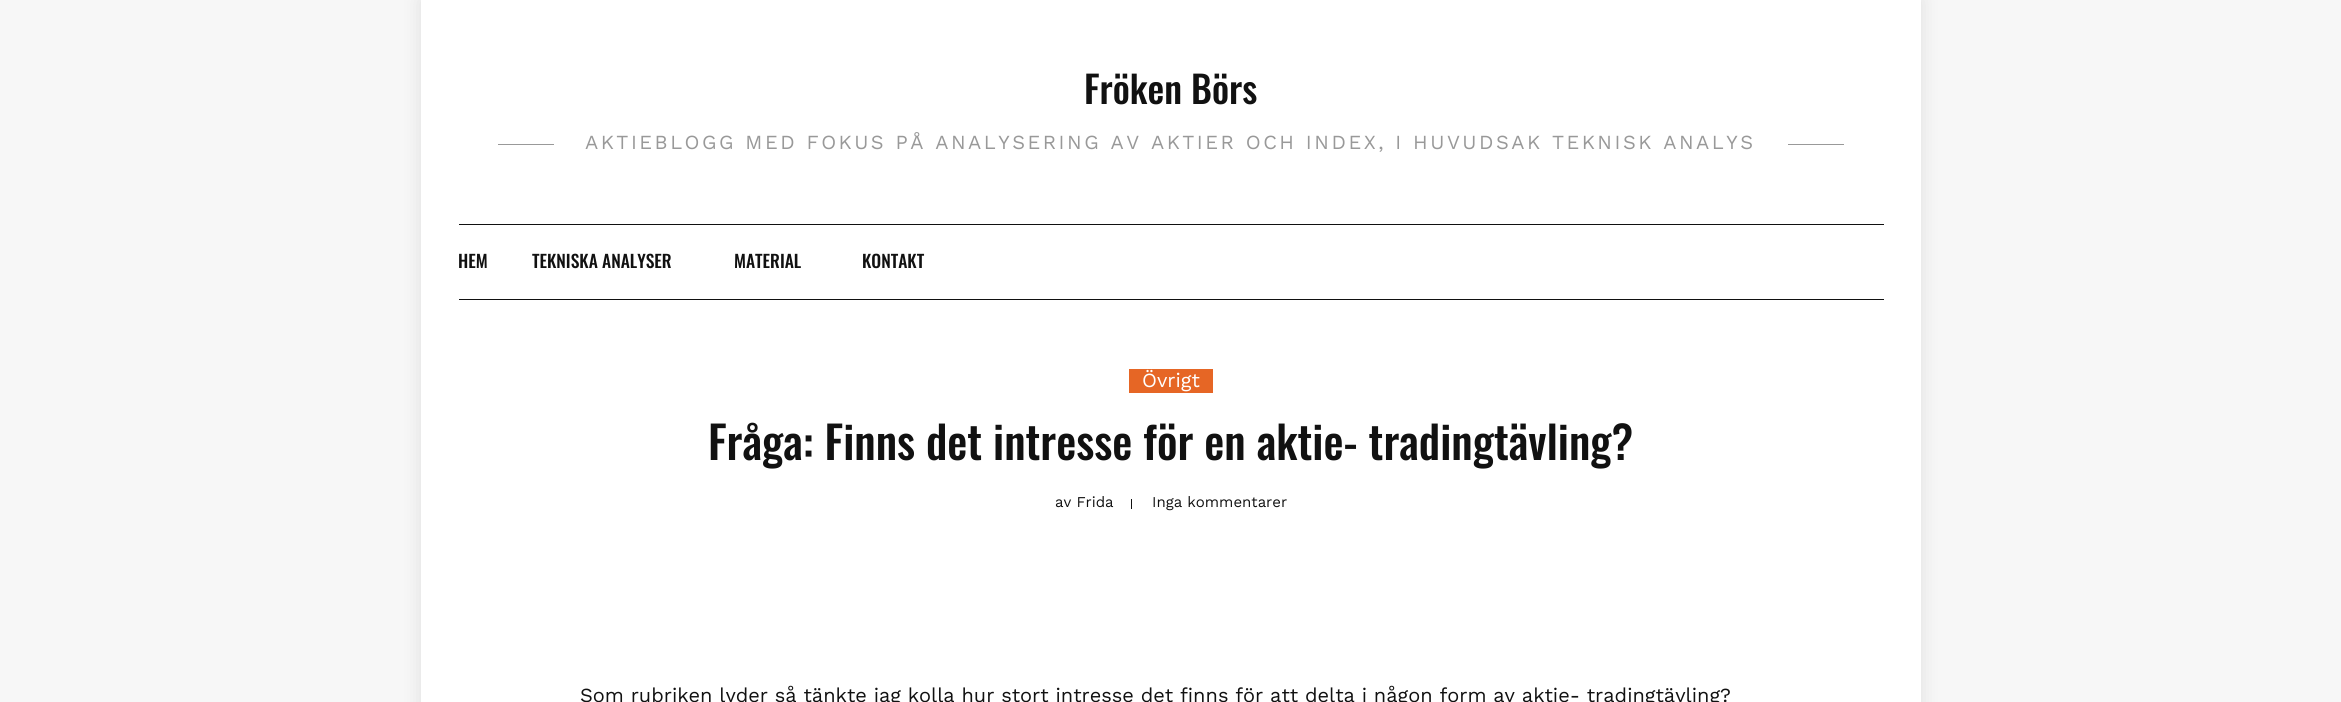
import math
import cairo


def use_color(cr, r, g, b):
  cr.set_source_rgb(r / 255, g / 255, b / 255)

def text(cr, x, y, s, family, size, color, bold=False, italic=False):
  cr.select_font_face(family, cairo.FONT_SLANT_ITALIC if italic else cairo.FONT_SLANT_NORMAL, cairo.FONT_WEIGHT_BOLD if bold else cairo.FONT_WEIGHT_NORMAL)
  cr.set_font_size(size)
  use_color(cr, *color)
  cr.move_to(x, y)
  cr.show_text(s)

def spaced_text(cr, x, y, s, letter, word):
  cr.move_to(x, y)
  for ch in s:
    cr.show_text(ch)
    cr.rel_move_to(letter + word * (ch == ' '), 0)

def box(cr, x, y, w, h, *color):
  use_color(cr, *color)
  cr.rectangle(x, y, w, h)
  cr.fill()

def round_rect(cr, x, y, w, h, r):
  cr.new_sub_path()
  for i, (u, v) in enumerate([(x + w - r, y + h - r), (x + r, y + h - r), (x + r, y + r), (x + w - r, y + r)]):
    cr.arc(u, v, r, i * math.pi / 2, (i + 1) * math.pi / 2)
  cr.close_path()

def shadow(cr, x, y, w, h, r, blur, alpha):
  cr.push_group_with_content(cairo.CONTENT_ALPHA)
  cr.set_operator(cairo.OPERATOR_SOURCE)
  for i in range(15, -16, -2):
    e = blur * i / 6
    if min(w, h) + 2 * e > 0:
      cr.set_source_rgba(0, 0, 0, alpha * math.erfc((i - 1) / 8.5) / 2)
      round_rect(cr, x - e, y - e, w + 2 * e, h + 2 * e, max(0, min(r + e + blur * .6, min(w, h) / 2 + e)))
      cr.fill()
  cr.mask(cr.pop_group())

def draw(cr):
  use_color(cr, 247, 247, 247)
  cr.paint()
  use_color(cr, 0, 0, 0)
  shadow(cr, 421, 0, 1500, 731, 0, 9.5, 0.1)
  box(cr, 421, 0, 1500, 702, 255, 255, 255)
  box(cr, 498, 144, 56, 1, 153, 153, 153)
  box(cr, 1788, 144, 56, 1, 153, 153, 153)
  box(cr, 459, 224, 1425, 1, 17, 17, 17)
  box(cr, 459, 299, 1425, 1, 17, 17, 17)
  box(cr, 1129, 369, 84, 24, 230, 102, 37)
  box(cr, 1131, 499, 1, 10, 17, 17, 17)
  text(cr, 1084, 104, "Fröken Börs", "Oswald Medium", 37.5, (17, 17, 17))
  cr.select_font_face("Work Sans")
  cr.set_font_size(20)
  use_color(cr, 153, 153, 153)
  spaced_text(cr, 585, 149, "AKTIEBLOGG MED FOKUS PÅ ANALYSERING AV AKTIER OCH INDEX, I HUVUDSAK TEKNISK ANALYS", 2.5, 0)
  text(cr, 458, 268, "HEM", "Oswald Medium", 17.5, (17, 17, 17))
  text(cr, 532, 268, "TEKNISKA ANALYSER", "Oswald Medium", 17.5, (17, 17, 17))
  text(cr, 734, 268, "MATERIAL", "Oswald Medium", 17.5, (17, 17, 17))
  text(cr, 862, 268, "KONTAKT", "Oswald Medium", 17.5, (17, 17, 17))
  text(cr, 1142, 387, "Övrigt", "Work Sans", 20, (255, 255, 255))
  text(cr, 708, 460, "Fråga: Finns det intresse för en aktie- tradingtävling?", "Oswald Medium", 45, (17, 17, 17))
  text(cr, 1055, 507, "av Frida", "Work Sans", 15, (17, 17, 17))
  text(cr, 1152, 507, "Inga kommentarer", "Work Sans", 15, (17, 17, 17))
  text(cr, 580, 702, "Som rubriken lyder så tänkte jag kolla hur stort intresse det finns för att delta i någon form av aktie- tradingtävling?", "Work Sans", 20, (17, 17, 17))


surface = cairo.ImageSurface(cairo.FORMAT_RGB24, 2341, 702)
cr = cairo.Context(surface)
options = cairo.FontOptions()
options.set_hint_metrics(cairo.HINT_METRICS_OFF)
options.set_hint_style(cairo.HINT_STYLE_NONE)
cr.set_font_options(options)
cr.set_miter_limit(4)
draw(cr)
surface.write_to_png("out.png")
